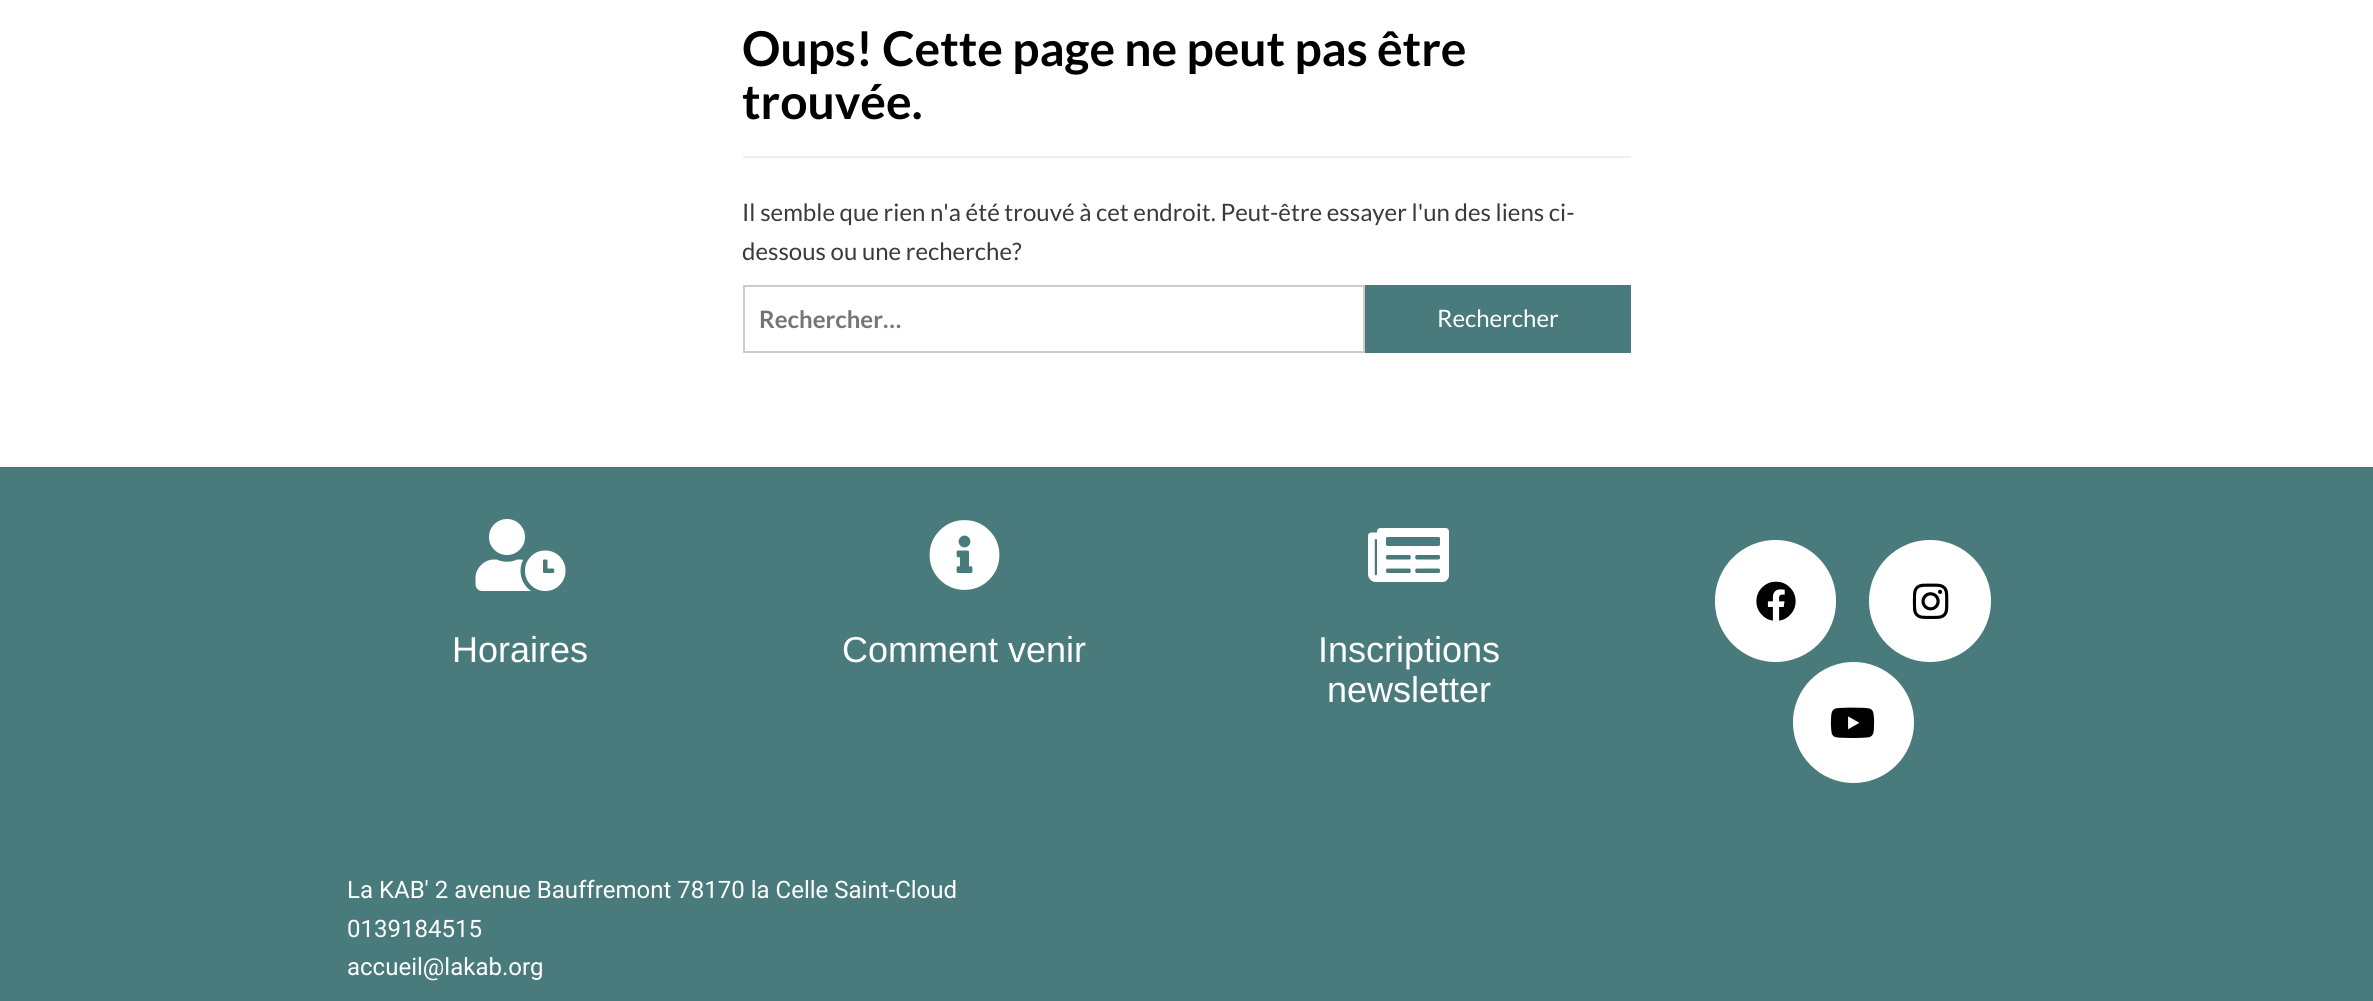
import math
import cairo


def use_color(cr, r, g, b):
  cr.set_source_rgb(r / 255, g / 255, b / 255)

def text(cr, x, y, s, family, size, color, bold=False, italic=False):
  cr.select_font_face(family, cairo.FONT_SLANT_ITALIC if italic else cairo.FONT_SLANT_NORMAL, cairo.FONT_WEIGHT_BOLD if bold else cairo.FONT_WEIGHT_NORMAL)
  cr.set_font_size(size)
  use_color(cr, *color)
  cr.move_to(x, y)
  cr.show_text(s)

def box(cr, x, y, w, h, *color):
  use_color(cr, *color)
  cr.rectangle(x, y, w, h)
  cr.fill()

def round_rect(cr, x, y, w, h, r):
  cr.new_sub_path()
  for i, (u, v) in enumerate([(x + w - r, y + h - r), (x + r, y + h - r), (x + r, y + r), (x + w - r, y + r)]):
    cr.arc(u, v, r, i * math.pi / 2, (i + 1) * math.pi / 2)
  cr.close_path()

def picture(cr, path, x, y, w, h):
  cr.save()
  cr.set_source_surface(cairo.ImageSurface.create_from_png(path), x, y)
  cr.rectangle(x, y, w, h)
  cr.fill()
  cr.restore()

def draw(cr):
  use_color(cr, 255, 255, 255)
  cr.paint()
  box(cr, 743, 156, 888, 2, 238, 238, 238)
  cr.rectangle(744, 286, 620, 66)
  use_color(cr, 204, 204, 204)
  cr.stroke()
  box(cr, 1365, 285, 266, 68, 73, 122, 124)
  box(cr, 0, 467, 2373, 534, 73, 123, 124)
  picture(cr, "img_01.png", 475, 519, 91, 72)
  picture(cr, "img_02.png", 929, 520, 71, 70)
  picture(cr, "img_03.png", 1368, 528, 81, 54)
  use_color(cr, 255, 255, 255)
  round_rect(cr, 1715, 540, 121, 122, 60.5)
  cr.fill()
  picture(cr, "img_04.png", 1756, 581, 40, 40)
  cr.arc(1930, 601, 61, 0, 2 * math.pi)
  cr.fill()
  picture(cr, "img_05.png", 1912, 583, 37, 36)
  cr.arc(1853.5, 722.5, 60.5, 0, 2 * math.pi)
  cr.fill()
  picture(cr, "img_06.png", 1830, 707, 45, 31)
  text(cr, 742, 66, "Oups! Cette page ne peut pas être", "Lato", 48, (0, 0, 0), bold=True)
  text(cr, 742, 119, "trouvée.", "Lato", 48, (0, 0, 0), bold=True)
  text(cr, 742, 221, "Il semble que rien n'a été trouvé à cet endroit. Peut-être essayer l'un des liens ci-", "Lato", 24, (58, 58, 58))
  text(cr, 742, 260, "dessous ou une recherche?", "Lato", 24, (58, 58, 58))
  text(cr, 759, 328, "Rechercher…", "Lato", 24, (117, 117, 117), bold=True)
  text(cr, 1437, 327, "Rechercher", "Lato", 24, (255, 255, 255))
  text(cr, 452, 662, "Horaires", "Liberation Sans", 36, (255, 255, 255))
  text(cr, 842, 662, "Comment venir", "Liberation Sans", 36, (255, 255, 255))
  text(cr, 1318, 662, "Inscriptions", "Liberation Sans", 36, (255, 255, 255))
  text(cr, 1327, 702, "newsletter", "Liberation Sans", 36, (255, 255, 255))
  text(cr, 347, 898, "La KAB' 2 avenue Bauffremont 78170 la Celle Saint-Cloud", "Roboto", 24, (255, 255, 255))
  text(cr, 347, 937, "0139184515", "Roboto", 24, (255, 255, 255))
  text(cr, 347, 975, "accueil@lakab.org", "Roboto", 24, (255, 255, 255))


surface = cairo.ImageSurface(cairo.FORMAT_RGB24, 2373, 1001)
cr = cairo.Context(surface)
options = cairo.FontOptions()
options.set_hint_metrics(cairo.HINT_METRICS_OFF)
options.set_hint_style(cairo.HINT_STYLE_NONE)
cr.set_font_options(options)
cr.set_miter_limit(4)
draw(cr)
surface.write_to_png("out.png")
